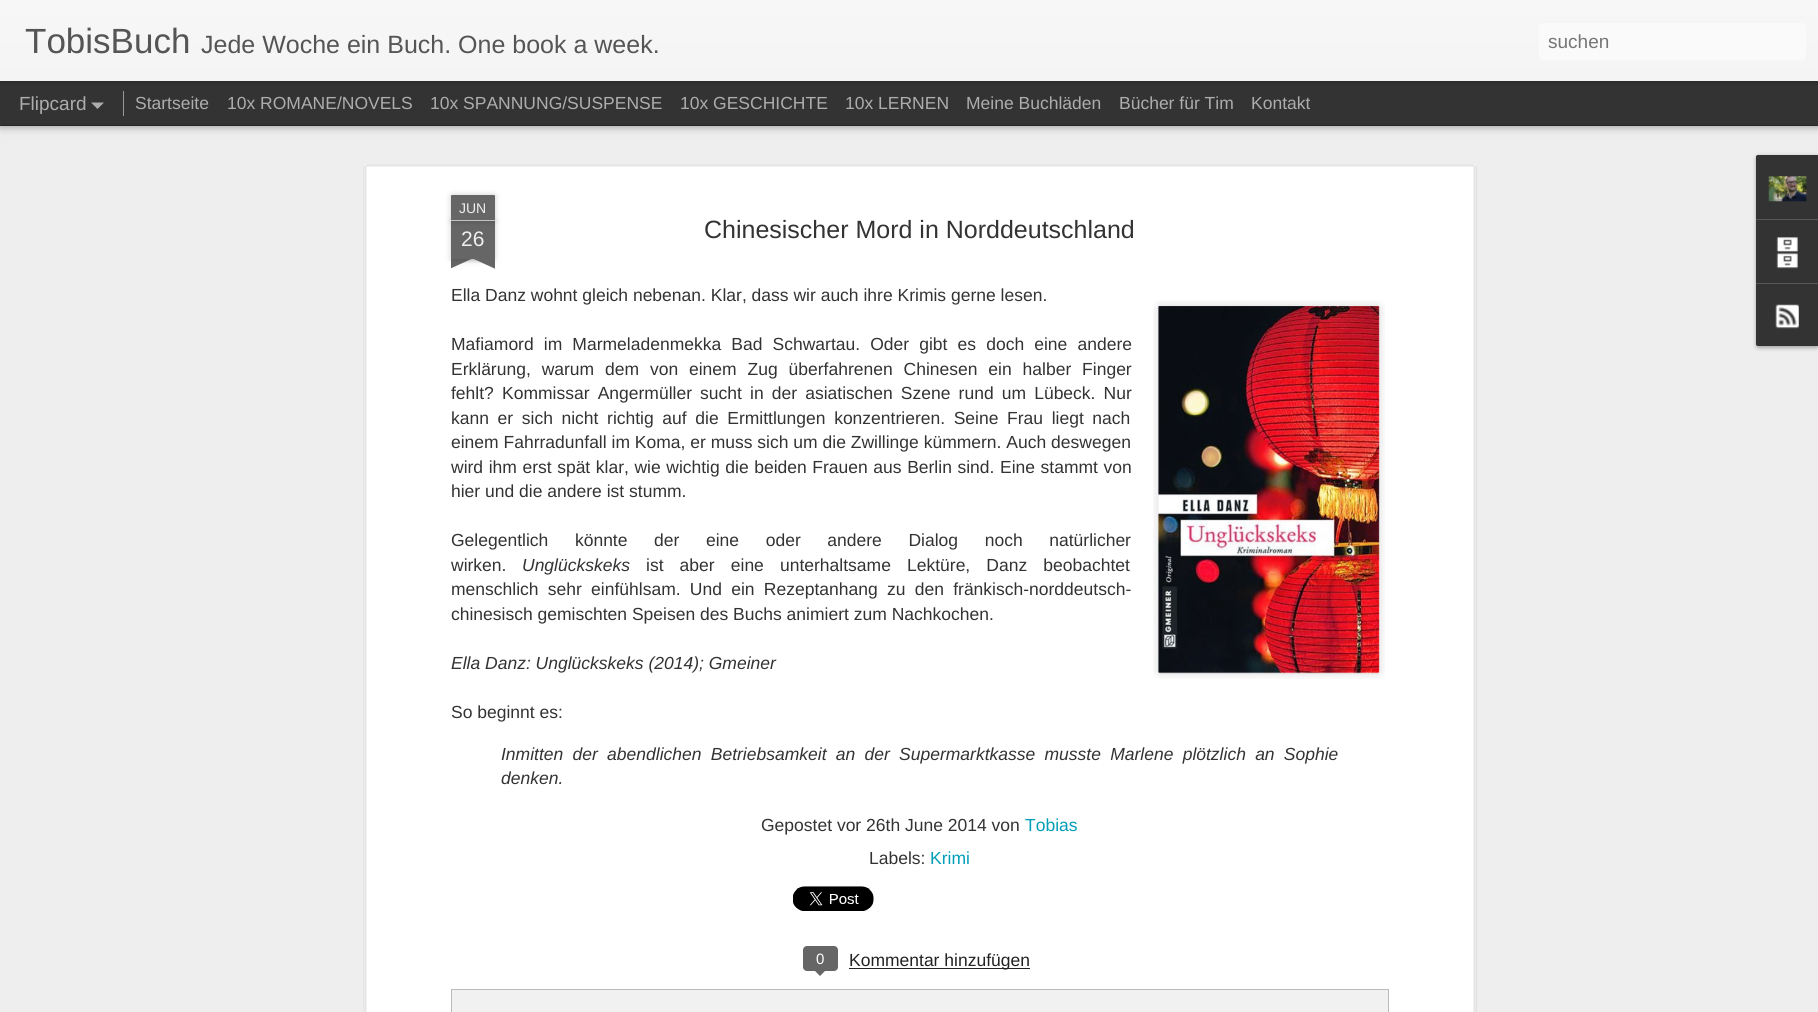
import math
import cairo


def use_color(cr, r, g, b):
  cr.set_source_rgb(r / 255, g / 255, b / 255)

def text(cr, x, y, s, family, size, color, bold=False, italic=False):
  cr.select_font_face(family, cairo.FONT_SLANT_ITALIC if italic else cairo.FONT_SLANT_NORMAL, cairo.FONT_WEIGHT_BOLD if bold else cairo.FONT_WEIGHT_NORMAL)
  cr.set_font_size(size)
  use_color(cr, *color)
  cr.move_to(x, y)
  cr.show_text(s)

def spaced_text(cr, x, y, s, letter, word):
  cr.move_to(x, y)
  for ch in s:
    cr.show_text(ch)
    cr.rel_move_to(letter + word * (ch == ' '), 0)

def box(cr, x, y, w, h, *color):
  use_color(cr, *color)
  cr.rectangle(x, y, w, h)
  cr.fill()

def round_rect(cr, x, y, w, h, r):
  cr.new_sub_path()
  for i, (u, v) in enumerate([(x + w - r, y + h - r), (x + r, y + h - r), (x + r, y + r), (x + w - r, y + r)]):
    cr.arc(u, v, r, i * math.pi / 2, (i + 1) * math.pi / 2)
  cr.close_path()

def shadow(cr, x, y, w, h, r, blur, alpha):
  cr.push_group_with_content(cairo.CONTENT_ALPHA)
  cr.set_operator(cairo.OPERATOR_SOURCE)
  for i in range(15, -16, -2):
    e = blur * i / 6
    if min(w, h) + 2 * e > 0:
      cr.set_source_rgba(0, 0, 0, alpha * math.erfc((i - 1) / 8.5) / 2)
      round_rect(cr, x - e, y - e, w + 2 * e, h + 2 * e, max(0, min(r + e + blur * .6, min(w, h) / 2 + e)))
      cr.fill()
  cr.mask(cr.pop_group())

def picture(cr, path, x, y, w, h):
  cr.save()
  cr.set_source_surface(cairo.ImageSurface.create_from_png(path), x, y)
  cr.rectangle(x, y, w, h)
  cr.fill()
  cr.restore()

def draw(cr):
  use_color(cr, 51, 51, 51)
  cr.paint()
  box(cr, 0, 126, 1818, 886, 238, 238, 238)
  use_color(cr, 0, 0, 0)
  shadow(cr, 0, 81, 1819, 44, 0, 5, 0.5)
  box(cr, 0, 81, 1818, 44, 51, 51, 51)
  use_color(cr, 0, 0, 0)
  shadow(cr, 0, 0, 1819, 81, 0, 3, 0.3)
  gradient = cairo.LinearGradient(0, 0, 0, 81)
  gradient.add_color_stop_rgba(0, 0.969, 0.969, 0.969, 1)
  gradient.add_color_stop_rgba(1, 0.957, 0.957, 0.957, 1)
  cr.set_source(gradient)
  cr.rectangle(0, 0, 1818, 81)
  cr.fill()
  use_color(cr, 250, 250, 250)
  round_rect(cr, 1539, 23, 267, 37, 4)
  cr.fill()
  use_color(cr, 173, 173, 173)
  cr.new_path()
  cr.move_to(91, 102.5)
  cr.line_to(104, 102.5)
  cr.line_to(97.5, 109)
  cr.close_path()
  cr.fill()
  box(cr, 123, 91, 1, 25, 153, 153, 153)
  box(cr, 364, 164, 1112, 848, 255, 255, 255)
  picture(cr, "img_01.png", 363, 164, 1114, 848)
  use_color(cr, 0, 0, 0)
  shadow(cr, 451, 221, 44, 38, 0, 3, 0.2)
  box(cr, 451, 221, 44, 38, 102, 102, 102)
  use_color(cr, 0, 0, 0)
  shadow(cr, 451, 195, 44, 26, 1, 3, 0.2)
  use_color(cr, 102, 102, 102)
  cr.new_path()
  cr.move_to(452, 195)
  cr.line_to(494, 195)
  cr.curve_to(494.5, 195, 495, 195.5, 495, 196)
  cr.line_to(495, 221)
  cr.line_to(451, 221)
  cr.line_to(451, 196)
  cr.curve_to(451, 195.5, 451.5, 195, 452, 195)
  cr.close_path()
  cr.fill()
  box(cr, 451, 220, 44, 1, 194, 194, 194)
  cr.save()
  cr.rectangle(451, 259, 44, 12)
  cr.clip()
  use_color(cr, 0, 0, 0)
  shadow(cr, 440, 246, 63, 13, 0, 3, 0.2)
  cr.restore()
  cr.save()
  cr.rectangle(451, 259, 44, 12)
  cr.clip()
  use_color(cr, 102, 102, 102)
  cr.new_path()
  cr.move_to(440, 260)
  cr.line_to(496, 234)
  cr.line_to(502, 245)
  cr.line_to(445, 271)
  cr.close_path()
  cr.fill()
  cr.restore()
  cr.save()
  cr.rectangle(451, 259, 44, 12)
  cr.clip()
  use_color(cr, 0, 0, 0)
  shadow(cr, 444, 246, 62, 13, 0, 3, 0.2)
  cr.restore()
  cr.save()
  cr.rectangle(451, 259, 44, 12)
  cr.clip()
  use_color(cr, 102, 102, 102)
  cr.new_path()
  cr.move_to(449, 234)
  cr.line_to(505, 260)
  cr.line_to(500, 271)
  cr.line_to(443, 245)
  cr.close_path()
  cr.fill()
  cr.restore()
  picture(cr, "img_02.png", 1153, 300, 232, 379)
  picture(cr, "img_03.png", 1158, 306, 221, 367)
  picture(cr, "img_04.png", 793, 886, 81, 25)
  use_color(cr, 102, 102, 102)
  round_rect(cr, 803.5, 946.5, 34, 24, 3.5)
  cr.fill_preserve()
  cr.set_line_width(1)
  cr.stroke()
  cr.new_path()
  cr.move_to(814, 970)
  cr.line_to(826, 970)
  cr.line_to(820, 976)
  cr.close_path()
  cr.fill()
  box(cr, 849, 968, 181, 1, 34, 34, 34)
  use_color(cr, 241, 241, 241)
  cr.rectangle(451.5, 989.5, 937, 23)
  cr.fill_preserve()
  use_color(cr, 187, 187, 187)
  cr.stroke()
  use_color(cr, 0, 0, 0)
  shadow(cr, 1756, 156, 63, 192, 2.5, 2, 0.3)
  use_color(cr, 51, 51, 51)
  cr.new_path()
  cr.move_to(1758.5, 155)
  cr.line_to(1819, 155)
  cr.line_to(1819, 346)
  cr.line_to(1758.5, 346)
  cr.curve_to(1757, 346, 1756, 345, 1756, 343.5)
  cr.line_to(1756, 157.5)
  cr.curve_to(1756, 156, 1757, 155, 1758.5, 155)
  cr.close_path()
  cr.fill()
  cr.new_path()
  cr.move_to(1758.5, 155)
  cr.line_to(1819, 155)
  cr.line_to(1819, 219)
  cr.line_to(1756, 219)
  cr.line_to(1756, 157.5)
  cr.curve_to(1756, 156, 1757, 155, 1758.5, 155)
  cr.close_path()
  cr.fill()
  picture(cr, "img_05.png", 1768, 176, 39, 26)
  box(cr, 1756, 219, 62, 1, 88, 88, 88)
  picture(cr, "img_06.png", 1776, 237, 22, 32)
  use_color(cr, 51, 51, 51)
  cr.new_path()
  cr.move_to(1756, 283)
  cr.line_to(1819, 283)
  cr.line_to(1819, 346)
  cr.line_to(1758.5, 346)
  cr.curve_to(1757, 346, 1756, 345, 1756, 343.5)
  cr.close_path()
  cr.fill()
  box(cr, 1756, 283, 62, 1, 88, 88, 88)
  picture(cr, "img_07.png", 1775, 304, 24, 25)
  text(cr, 25, 53, "TobisBuch", "Liberation Sans", 35, (85, 85, 85))
  text(cr, 201, 53, "Jede Woche ein Buch. One book a week.", "Liberation Sans", 25, (85, 85, 85))
  text(cr, 1548, 48, "suchen", "Liberation Sans", 19, (117, 117, 117))
  text(cr, 19, 110, "Flipcard", "Liberation Sans", 19, (173, 173, 173))
  text(cr, 135, 109, "Startseite", "Liberation Sans", 17.5, (173, 173, 173))
  text(cr, 227, 109, "10x ROMANE/NOVELS", "Liberation Sans", 17.5, (173, 173, 173))
  text(cr, 430, 109, "10x SPANNUNG/SUSPENSE", "Liberation Sans", 17.5, (173, 173, 173))
  text(cr, 680, 109, "10x GESCHICHTE", "Liberation Sans", 17.5, (173, 173, 173))
  text(cr, 845, 109, "10x LERNEN", "Liberation Sans", 17.5, (173, 173, 173))
  text(cr, 966, 109, "Meine Buchläden", "Liberation Sans", 17.5, (173, 173, 173))
  text(cr, 1119, 109, "Bücher für Tim", "Liberation Sans", 17.5, (173, 173, 173))
  text(cr, 1251, 109, "Kontakt", "Liberation Sans", 17.5, (173, 173, 173))
  text(cr, 459, 213, "JUN", "Liberation Sans", 14, (238, 238, 238))
  text(cr, 461, 246, "26", "Liberation Sans", 21, (238, 238, 238))
  text(cr, 704, 238, "Chinesischer Mord in Norddeutschland", "Liberation Sans", 25, (51, 51, 51))
  text(cr, 451, 301, "Ella Danz wohnt gleich nebenan. Klar, dass wir auch ihre Krimis gerne lesen.", "Liberation Sans", 17.5, (51, 51, 51))
  spaced_text(cr, 451, 350, "Mafiamord im Marmeladenmekka Bad Schwartau. Oder gibt es doch eine andere", 0, 5.25)
  spaced_text(cr, 451, 375, "Erklärung, warum dem von einem Zug überfahrenen Chinesen ein halber Finger", 0, 6)
  text(cr, 451, 399, "fehlt?", "Liberation Sans", 17.5, (51, 51, 51))
  spaced_text(cr, 502, 399, "Kommissar Angermüller sucht in der asiatischen Szene rund um Lübeck. Nur", 0, 3.25)
  spaced_text(cr, 451, 424, "kann er sich nicht richtig auf die Ermittlungen konzentrieren. Seine Frau liegt nach", 0, 3.75)
  text(cr, 451, 448, "einem Fahrradunfall im Koma, er muss sich um die Zwillinge kümmern. Auch deswegen", "Liberation Sans", 17.5, (51, 51, 51))
  spaced_text(cr, 451, 473, "wird ihm erst spät klar, wie wichtig die beiden Frauen aus Berlin sind. Eine stammt von", 0, 0.7)
  text(cr, 451, 497, "hier und die andere ist stumm.", "Liberation Sans", 17.5, (51, 51, 51))
  spaced_text(cr, 451, 546, "Gelegentlich könnte der eine oder andere Dialog noch natürlicher", 0, 21.75)
  text(cr, 451, 571, "wirken.", "Liberation Sans", 17.5, (51, 51, 51))
  text(cr, 522, 571, "Unglückskeks", "Liberation Sans", 17.5, (51, 51, 51), italic=True)
  cr.select_font_face("Liberation Sans")
  spaced_text(cr, 646, 571, "ist aber eine unterhaltsame Lektüre, Danz beobachtet", 0, 11.25)
  spaced_text(cr, 451, 595, "menschlich sehr einfühlsam. Und ein Rezeptanhang zu den fränkisch-norddeutsch-", 0, 4.4)
  text(cr, 451, 620, "chinesisch gemischten Speisen des Buchs animiert zum Nachkochen.", "Liberation Sans", 17.5, (51, 51, 51))
  text(cr, 451, 669, "Ella Danz: Unglückskeks (2014); Gmeiner", "Liberation Sans", 17.5, (51, 51, 51), italic=True)
  text(cr, 451, 718, "So beginnt es:", "Liberation Sans", 17.5, (51, 51, 51))
  cr.select_font_face("Liberation Sans", cairo.FONT_SLANT_ITALIC)
  spaced_text(cr, 501, 760, "Inmitten der abendlichen Betriebsamkeit an der Supermarktkasse musste Marlene plötzlich an Sophie", 0, 4.4)
  text(cr, 501, 784, "denken.", "Liberation Sans", 17.5, (51, 51, 51), italic=True)
  text(cr, 761, 831, "Gepostet vor 26th June 2014 von", "Liberation Sans", 17.5, (51, 51, 51))
  text(cr, 1025, 831, "Tobias", "Liberation Sans", 17.5, (0, 158, 184))
  text(cr, 869, 864, "Labels:", "Liberation Sans", 17.5, (51, 51, 51))
  text(cr, 930, 864, "Krimi", "Liberation Sans", 17.5, (0, 158, 184))
  text(cr, 816, 964, "0", "Liberation Sans", 15, (255, 255, 255))
  text(cr, 849, 966, "Kommentar hinzufügen", "Liberation Sans", 17.5, (34, 34, 34))


surface = cairo.ImageSurface(cairo.FORMAT_RGB24, 1818, 1012)
cr = cairo.Context(surface)
options = cairo.FontOptions()
options.set_hint_metrics(cairo.HINT_METRICS_OFF)
options.set_hint_style(cairo.HINT_STYLE_NONE)
cr.set_font_options(options)
cr.set_miter_limit(4)
draw(cr)
surface.write_to_png("out.png")
